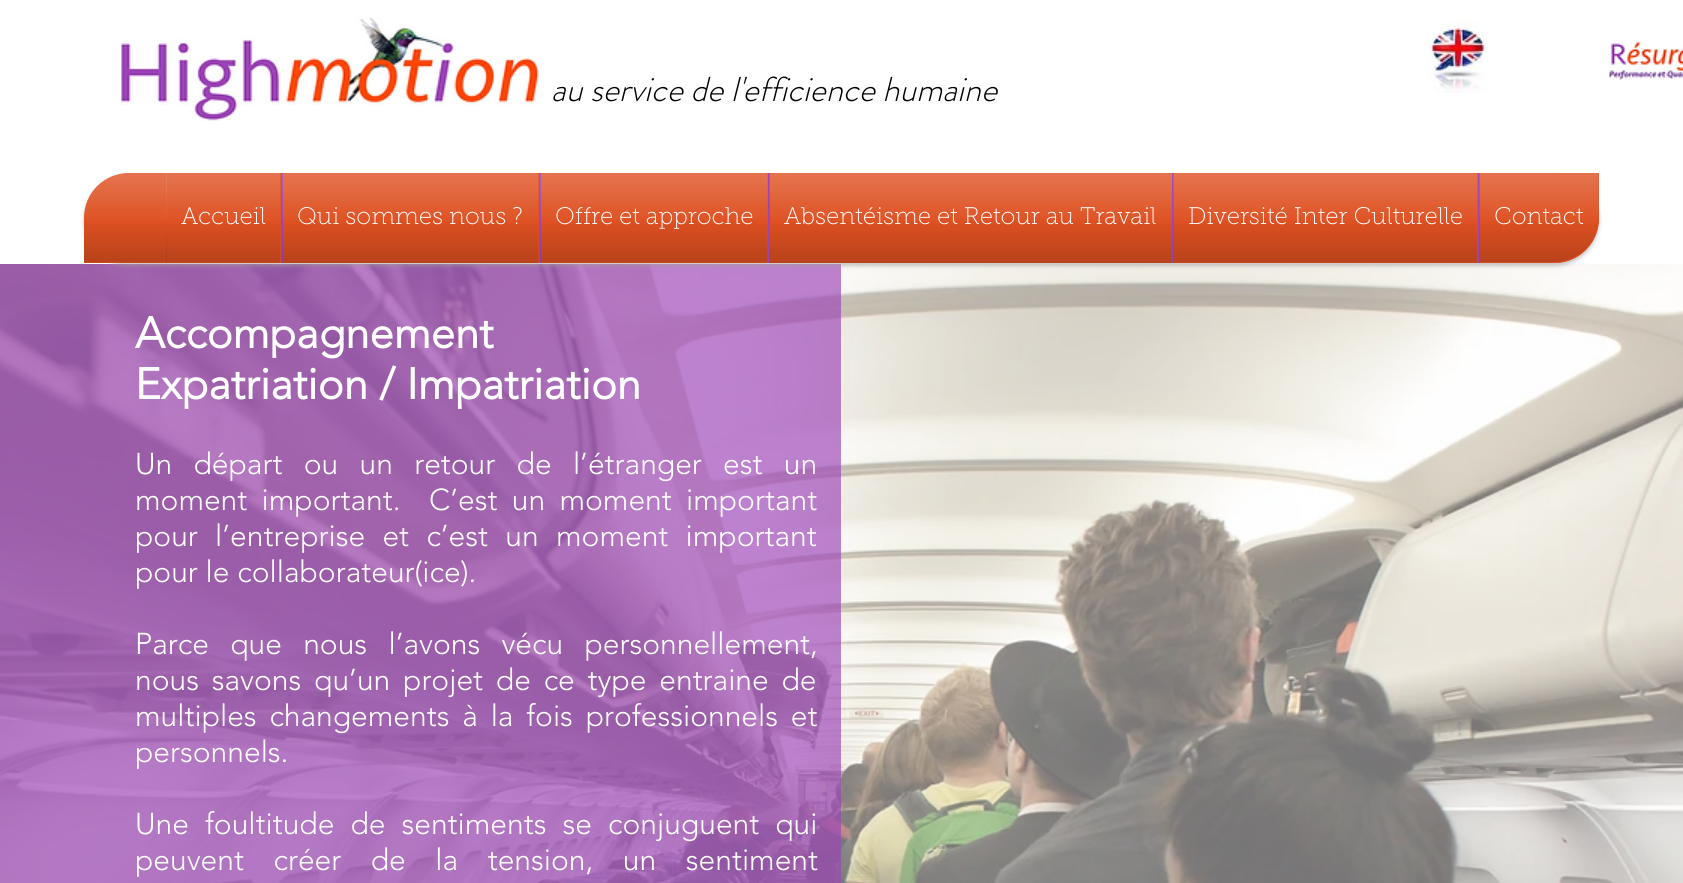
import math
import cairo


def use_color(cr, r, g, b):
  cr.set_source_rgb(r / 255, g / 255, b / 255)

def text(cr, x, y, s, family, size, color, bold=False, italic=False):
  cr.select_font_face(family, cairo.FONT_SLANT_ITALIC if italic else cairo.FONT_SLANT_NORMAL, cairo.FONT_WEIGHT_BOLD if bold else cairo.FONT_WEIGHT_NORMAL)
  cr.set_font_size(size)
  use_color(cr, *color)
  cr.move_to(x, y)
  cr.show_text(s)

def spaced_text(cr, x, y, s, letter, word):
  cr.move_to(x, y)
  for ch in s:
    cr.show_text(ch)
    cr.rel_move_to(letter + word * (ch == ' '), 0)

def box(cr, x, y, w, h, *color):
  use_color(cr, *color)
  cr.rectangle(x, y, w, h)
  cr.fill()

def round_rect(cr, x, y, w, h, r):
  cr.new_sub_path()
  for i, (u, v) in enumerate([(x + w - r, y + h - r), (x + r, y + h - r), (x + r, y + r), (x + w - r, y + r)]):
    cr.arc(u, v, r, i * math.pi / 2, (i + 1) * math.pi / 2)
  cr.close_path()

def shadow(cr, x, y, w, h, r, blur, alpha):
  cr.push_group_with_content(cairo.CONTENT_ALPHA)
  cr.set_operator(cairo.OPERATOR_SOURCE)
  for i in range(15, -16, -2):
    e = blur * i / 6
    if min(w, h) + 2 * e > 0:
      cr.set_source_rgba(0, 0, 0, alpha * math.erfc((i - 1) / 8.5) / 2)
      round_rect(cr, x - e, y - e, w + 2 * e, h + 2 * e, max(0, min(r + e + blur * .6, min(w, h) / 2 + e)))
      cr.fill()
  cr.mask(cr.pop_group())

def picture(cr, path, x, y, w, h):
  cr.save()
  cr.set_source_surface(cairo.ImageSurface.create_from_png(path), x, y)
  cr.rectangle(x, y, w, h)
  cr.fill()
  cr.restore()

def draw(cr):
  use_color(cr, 255, 255, 255)
  cr.paint()
  picture(cr, "img_01.png", 121, 17, 420, 104)
  picture(cr, "img_02.png", 1428, 21, 59, 72)
  picture(cr, "img_03.png", 1608, 41, 75, 39)
  picture(cr, "img_18.png", 0, 264, 1683, 619)
  cr.set_source_rgba(0.616, 0.271, 0.722, 0.67)
  cr.rectangle(0, 264, 841, 619)
  cr.fill()
  use_color(cr, 162, 158, 158)
  shadow(cr, 84, 176, 1515, 90, 45, 2, 0.6)
  use_color(cr, 222, 80, 33)
  cr.new_path()
  cr.move_to(129, 173)
  cr.line_to(1599, 173)
  cr.line_to(1599, 218)
  cr.curve_to(1599, 243, 1579, 263, 1554, 263)
  cr.line_to(84, 263)
  cr.line_to(84, 218)
  cr.curve_to(84, 193, 104, 173, 129, 173)
  cr.close_path()
  cr.fill()
  picture(cr, "img_04.png", 84, 173, 1515, 48)
  picture(cr, "img_05.png", 84, 224, 1511, 39)
  box(cr, 167, 173, 114, 90, 222, 80, 33)
  box(cr, 283, 173, 256, 90, 222, 80, 33)
  box(cr, 281, 173, 2, 90, 157, 69, 184)
  box(cr, 541, 173, 227, 90, 222, 80, 33)
  box(cr, 539, 173, 2, 90, 157, 69, 184)
  box(cr, 770, 173, 402, 90, 222, 80, 33)
  box(cr, 768, 173, 2, 90, 157, 69, 184)
  box(cr, 1174, 173, 304, 90, 222, 80, 33)
  box(cr, 1172, 173, 2, 90, 157, 69, 184)
  use_color(cr, 222, 80, 33)
  cr.new_path()
  cr.move_to(1478, 173)
  cr.line_to(1599, 173)
  cr.line_to(1599, 218)
  cr.curve_to(1599, 243, 1579, 263, 1554, 263)
  cr.line_to(1478, 263)
  cr.close_path()
  cr.fill()
  box(cr, 1478, 173, 2, 90, 157, 69, 184)
  text(cr, 551, 101, "au service de l'efficience humaine", "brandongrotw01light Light", 34.5, (0, 0, 0), italic=True)
  text(cr, 181, 224, "Accueil", "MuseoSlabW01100 Thin", 24, (255, 255, 255))
  picture(cr, "img_07.png", 166, 224, 115, 39)
  picture(cr, "img_06.png", 166, 173, 115, 48)
  text(cr, 297, 224, "Qui sommes nous ?", "MuseoSlabW01100 Thin", 24, (255, 255, 255))
  picture(cr, "img_09.png", 281, 224, 258, 39)
  picture(cr, "img_08.png", 281, 173, 258, 48)
  text(cr, 555, 224, "Offre et approche", "MuseoSlabW01100 Thin", 24, (255, 255, 255))
  picture(cr, "img_11.png", 539, 224, 229, 39)
  picture(cr, "img_10.png", 539, 173, 229, 48)
  text(cr, 784, 224, "Absentéisme et Retour au Travail", "MuseoSlabW01100 Thin", 24, (255, 255, 255))
  picture(cr, "img_13.png", 769, 224, 403, 39)
  picture(cr, "img_12.png", 769, 173, 403, 48)
  text(cr, 1188, 224, "Diversité Inter Culturelle", "MuseoSlabW01100 Thin", 24, (255, 255, 255))
  picture(cr, "img_15.png", 1172, 224, 306, 39)
  picture(cr, "img_14.png", 1172, 173, 306, 48)
  text(cr, 1494, 224, "Contact", "MuseoSlabW01100 Thin", 24, (255, 255, 255))
  picture(cr, "img_17.png", 1479, 224, 119, 39)
  picture(cr, "img_16.png", 1478, 173, 121, 48)
  text(cr, 135, 348, "Accompagnement", "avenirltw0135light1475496", 43.5, (255, 255, 255), bold=True)
  text(cr, 135, 399, "Expatriation / Impatriation", "avenirltw0135light1475496", 43.5, (255, 255, 255), bold=True)
  cr.select_font_face("avenirltw0135light1475496 Light")
  cr.set_font_size(30)
  spaced_text(cr, 135, 474, "Un départ ou un retour de l’étranger est un", 0, 13.5)
  spaced_text(cr, 135, 510, "moment important.  C’est un moment important", 0, 6.5)
  spaced_text(cr, 135, 546, "pour l’entreprise et c’est un moment important", 0, 9.5)
  text(cr, 135, 582, "pour le collaborateur(ice).", "avenirltw0135light1475496 Light", 30, (255, 255, 255))
  spaced_text(cr, 135, 654, "Parce que nous l’avons vécu personnellement,", 0, 13.5)
  spaced_text(cr, 135, 690, "nous savons qu’un projet de ce type entraine de", 0, 5)
  spaced_text(cr, 135, 726, "multiples changements à la fois professionnels et", 0, 5)
  text(cr, 135, 762, "personnels.", "avenirltw0135light1475496 Light", 30, (255, 255, 255))
  spaced_text(cr, 135, 834, "Une foultitude de sentiments se conjuguent qui", 0, 8.25)
  spaced_text(cr, 135, 870, "peuvent créer de la tension, un sentiment", 0, 21.75)


surface = cairo.ImageSurface(cairo.FORMAT_RGB24, 1683, 883)
cr = cairo.Context(surface)
options = cairo.FontOptions()
options.set_hint_metrics(cairo.HINT_METRICS_OFF)
options.set_hint_style(cairo.HINT_STYLE_NONE)
cr.set_font_options(options)
cr.set_miter_limit(4)
draw(cr)
surface.write_to_png("out.png")
